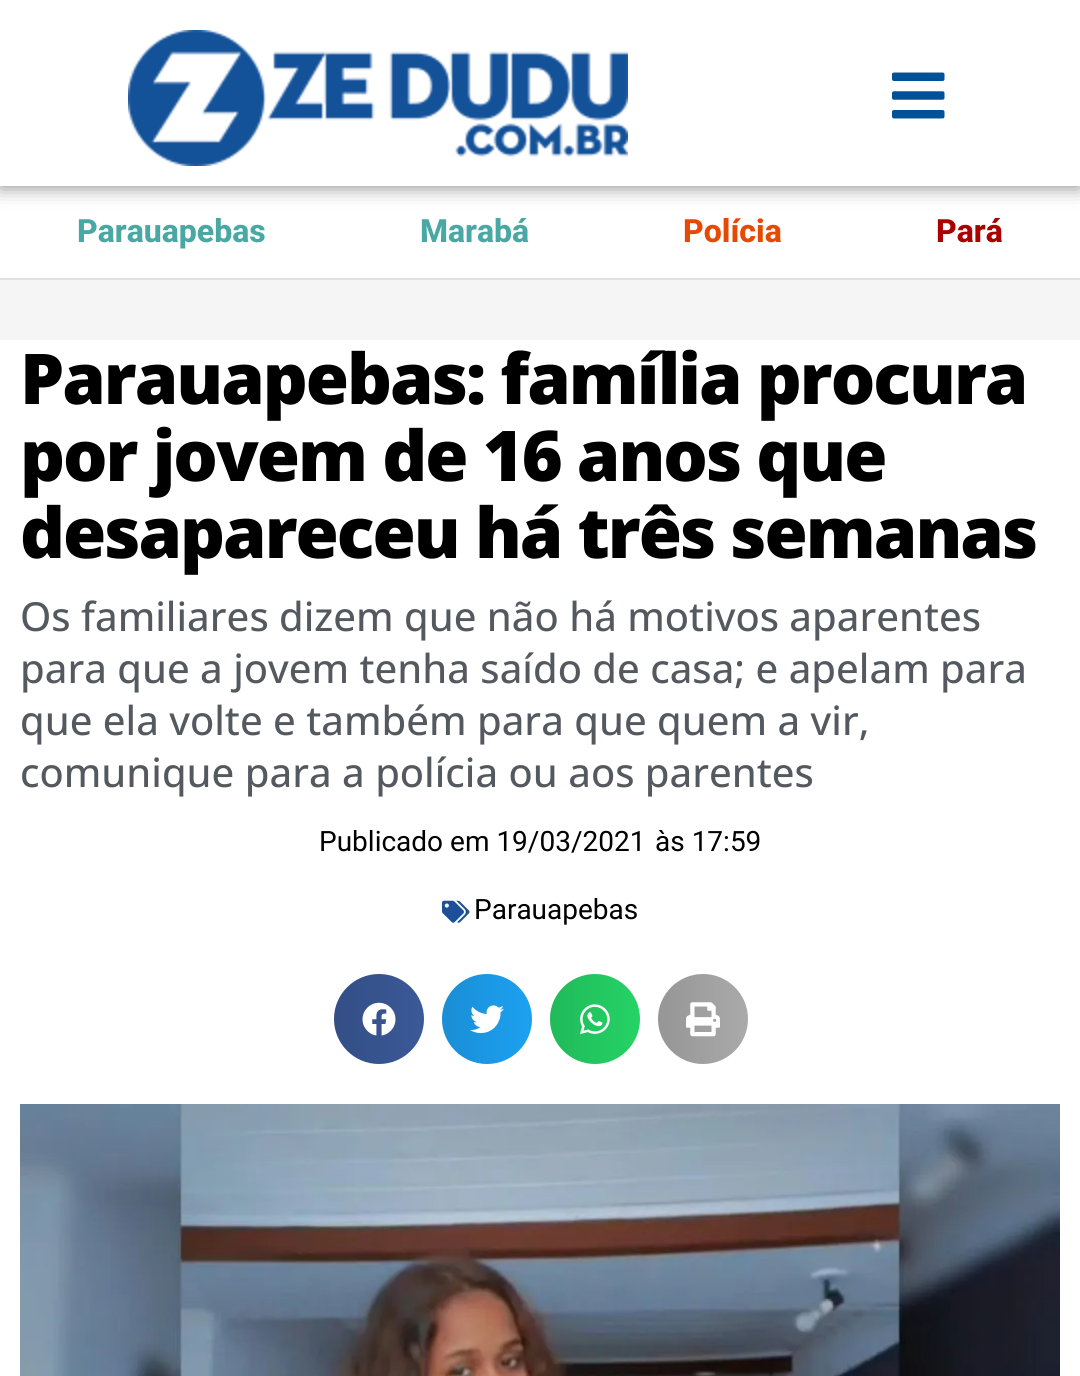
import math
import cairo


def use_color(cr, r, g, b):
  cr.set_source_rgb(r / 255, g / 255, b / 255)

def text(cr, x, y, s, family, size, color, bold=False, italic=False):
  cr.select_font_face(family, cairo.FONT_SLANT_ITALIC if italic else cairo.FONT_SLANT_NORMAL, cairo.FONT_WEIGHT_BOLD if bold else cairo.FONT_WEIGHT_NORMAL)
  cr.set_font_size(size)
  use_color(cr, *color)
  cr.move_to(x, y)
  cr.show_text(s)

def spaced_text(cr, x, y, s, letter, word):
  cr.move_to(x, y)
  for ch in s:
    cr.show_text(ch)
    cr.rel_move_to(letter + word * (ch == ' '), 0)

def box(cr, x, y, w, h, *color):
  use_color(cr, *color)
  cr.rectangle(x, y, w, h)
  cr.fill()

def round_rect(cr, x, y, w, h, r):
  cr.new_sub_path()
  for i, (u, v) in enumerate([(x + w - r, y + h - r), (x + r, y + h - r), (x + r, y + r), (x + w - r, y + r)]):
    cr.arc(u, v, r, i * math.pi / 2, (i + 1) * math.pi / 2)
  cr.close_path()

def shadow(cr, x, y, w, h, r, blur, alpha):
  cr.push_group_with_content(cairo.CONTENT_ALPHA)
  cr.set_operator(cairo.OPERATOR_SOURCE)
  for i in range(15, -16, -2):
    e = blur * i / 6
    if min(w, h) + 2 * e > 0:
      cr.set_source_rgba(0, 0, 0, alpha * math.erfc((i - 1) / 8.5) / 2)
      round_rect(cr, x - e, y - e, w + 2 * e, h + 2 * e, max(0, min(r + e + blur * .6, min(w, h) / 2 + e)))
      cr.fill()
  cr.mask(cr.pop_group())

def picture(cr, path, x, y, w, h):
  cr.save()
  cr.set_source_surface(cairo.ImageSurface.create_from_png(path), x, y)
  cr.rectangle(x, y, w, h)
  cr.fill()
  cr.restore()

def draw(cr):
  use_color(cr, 245, 245, 245)
  cr.paint()
  box(cr, 0, 186, 1080, 92, 255, 255, 255)
  use_color(cr, 0, 0, 0)
  shadow(cr, 0, 0, 1080, 186, 0, 10, 0.5)
  box(cr, 0, 0, 1080, 186, 255, 255, 255)
  picture(cr, "img_01.png", 128, 30, 500, 136)
  picture(cr, "img_02.png", 892, 72, 53, 47)
  box(cr, 0, 278, 1080, 2, 224, 224, 224)
  box(cr, 0, 340, 1080, 1036, 255, 255, 255)
  picture(cr, "img_03.png", 442, 900, 28, 23)
  use_color(cr, 59, 89, 152)
  cr.arc(379, 1019, 45, 0, 2 * math.pi)
  cr.fill()
  gradient = cairo.LinearGradient(334, 1019, 424, 1019)
  gradient.add_color_stop_rgba(0, 0, 0, 0, 0.12)
  gradient.add_color_stop_rgba(1, 0, 0, 0, 0)
  cr.set_source(gradient)
  cr.arc(379, 1019, 45, 0, 2 * math.pi)
  cr.fill()
  picture(cr, "img_04.png", 362, 1002, 34, 34)
  use_color(cr, 29, 161, 242)
  cr.arc(487, 1019, 45, 0, 2 * math.pi)
  cr.fill()
  gradient = cairo.LinearGradient(442, 1019, 532, 1019)
  gradient.add_color_stop_rgba(0, 0, 0, 0, 0.12)
  gradient.add_color_stop_rgba(1, 0, 0, 0, 0)
  cr.set_source(gradient)
  cr.arc(487, 1019, 45, 0, 2 * math.pi)
  cr.fill()
  picture(cr, "img_05.png", 470, 1005, 34, 29)
  use_color(cr, 37, 211, 102)
  cr.arc(595, 1019, 45, 0, 2 * math.pi)
  cr.fill()
  gradient = cairo.LinearGradient(550, 1019, 640, 1019)
  gradient.add_color_stop_rgba(0, 0, 0, 0, 0.12)
  gradient.add_color_stop_rgba(1, 0, 0, 0, 0)
  cr.set_source(gradient)
  cr.arc(595, 1019, 45, 0, 2 * math.pi)
  cr.fill()
  picture(cr, "img_06.png", 580, 1004, 30, 31)
  use_color(cr, 170, 170, 170)
  cr.arc(703, 1019, 45, 0, 2 * math.pi)
  cr.fill()
  gradient = cairo.LinearGradient(658, 1019, 748, 1019)
  gradient.add_color_stop_rgba(0, 0, 0, 0, 0.12)
  gradient.add_color_stop_rgba(1, 0, 0, 0, 0)
  cr.set_source(gradient)
  cr.arc(703, 1019, 45, 0, 2 * math.pi)
  cr.fill()
  picture(cr, "img_07.png", 686, 1002, 34, 35)
  picture(cr, "img_08.png", 20, 1104, 1040, 272)
  text(cr, 77, 242, "Parauapebas", "Roboto ExtraBold", 32, (73, 168, 164))
  text(cr, 420, 242, "Marabá", "Roboto ExtraBold", 32, (73, 168, 164))
  text(cr, 683, 242, "Polícia", "Roboto ExtraBold", 32, (231, 73, 3))
  text(cr, 936, 242, "Pará", "Roboto ExtraBold", 32, (171, 0, 0))
  cr.select_font_face("Open Sans ExtraBold")
  cr.set_font_size(70)
  use_color(cr, 0, 0, 0)
  spaced_text(cr, 20, 404, "Parauapebas: família procura", -2, 0)
  spaced_text(cr, 20, 481, "por jovem de 16 anos que", -2, 0)
  spaced_text(cr, 20, 558, "desapareceu há três semanas", -2, 0)
  text(cr, 20, 631, "Os familiares dizem que não há motivos aparentes", "Open Sans Medium", 40, (84, 89, 95))
  text(cr, 20, 683, "para que a jovem tenha saído de casa; e apelam para", "Open Sans Medium", 40, (84, 89, 95))
  text(cr, 20, 735, "que ela volte e também para que quem a vir,", "Open Sans Medium", 40, (84, 89, 95))
  text(cr, 20, 787, "comunique para a polícia ou aos parentes", "Open Sans Medium", 40, (84, 89, 95))
  text(cr, 319, 851, "Publicado em 19/03/2021", "Roboto", 28, (0, 0, 0))
  text(cr, 655, 851, "às 17:59", "Roboto", 28, (0, 0, 0))
  text(cr, 474, 919, "Parauapebas", "Roboto", 28, (0, 0, 0))


surface = cairo.ImageSurface(cairo.FORMAT_RGB24, 1080, 1376)
cr = cairo.Context(surface)
options = cairo.FontOptions()
options.set_hint_metrics(cairo.HINT_METRICS_OFF)
options.set_hint_style(cairo.HINT_STYLE_NONE)
cr.set_font_options(options)
cr.set_miter_limit(4)
draw(cr)
surface.write_to_png("out.png")
